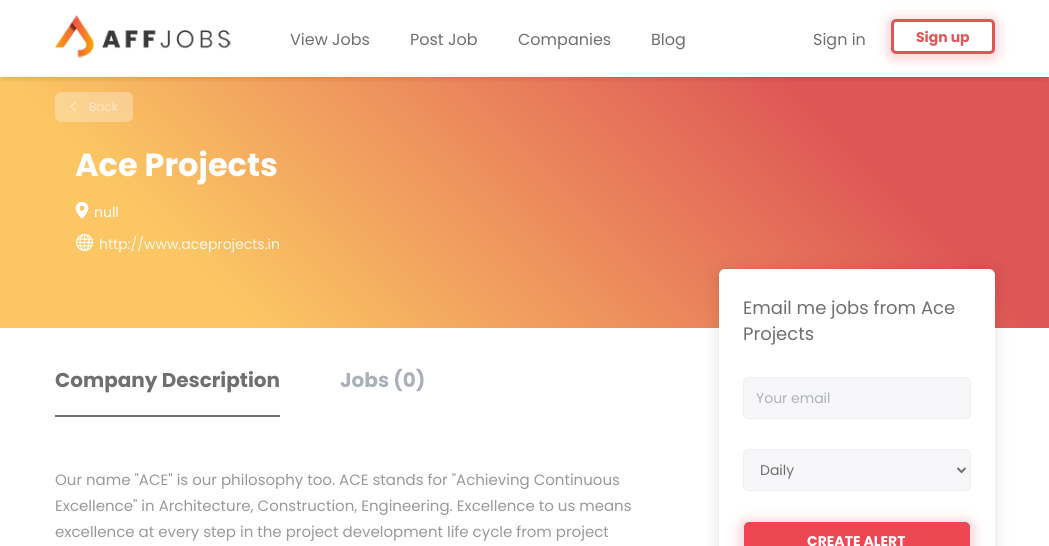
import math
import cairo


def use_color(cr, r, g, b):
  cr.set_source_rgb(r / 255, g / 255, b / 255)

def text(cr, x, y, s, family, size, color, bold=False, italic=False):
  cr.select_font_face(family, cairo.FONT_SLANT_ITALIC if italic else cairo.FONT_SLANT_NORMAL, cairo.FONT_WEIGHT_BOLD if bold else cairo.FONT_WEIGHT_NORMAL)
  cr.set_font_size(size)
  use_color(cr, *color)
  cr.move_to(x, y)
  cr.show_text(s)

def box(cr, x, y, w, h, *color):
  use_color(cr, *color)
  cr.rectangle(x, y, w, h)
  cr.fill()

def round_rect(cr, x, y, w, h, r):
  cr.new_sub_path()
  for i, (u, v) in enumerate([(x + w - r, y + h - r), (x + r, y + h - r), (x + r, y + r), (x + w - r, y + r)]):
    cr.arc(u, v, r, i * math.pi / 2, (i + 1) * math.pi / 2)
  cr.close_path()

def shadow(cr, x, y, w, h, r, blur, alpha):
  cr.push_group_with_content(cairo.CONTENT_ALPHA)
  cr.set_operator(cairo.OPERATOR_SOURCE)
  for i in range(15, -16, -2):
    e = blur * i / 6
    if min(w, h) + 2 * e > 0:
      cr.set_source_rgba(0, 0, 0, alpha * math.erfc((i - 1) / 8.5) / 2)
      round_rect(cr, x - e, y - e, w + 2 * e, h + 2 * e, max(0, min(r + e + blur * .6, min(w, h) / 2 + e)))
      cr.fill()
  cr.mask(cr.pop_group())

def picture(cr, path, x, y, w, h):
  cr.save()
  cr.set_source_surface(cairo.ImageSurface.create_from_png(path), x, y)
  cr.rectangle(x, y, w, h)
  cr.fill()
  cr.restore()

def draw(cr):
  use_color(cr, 255, 255, 255)
  cr.paint()
  gradient = cairo.LinearGradient(200, 528, 850, -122)
  gradient.add_color_stop_rgba(0, 0.984, 0.776, 0.388, 1)
  gradient.add_color_stop_rgba(0.2, 0.984, 0.776, 0.388, 1)
  gradient.add_color_stop_rgba(0.8, 0.871, 0.337, 0.337, 1)
  gradient.add_color_stop_rgba(1, 0.871, 0.337, 0.337, 1)
  cr.set_source(gradient)
  cr.rectangle(0, 77, 1049, 251)
  cr.fill()
  cr.save()
  cr.rectangle(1, 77, 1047, 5)
  cr.clip()
  use_color(cr, 0, 0, 0)
  shadow(cr, 4, 6, 1041, 69, 0, 4.5, 0.3)
  cr.restore()
  picture(cr, "img_01.png", 55, 15, 176, 43)
  use_color(cr, 236, 71, 83)
  shadow(cr, 886, 16, 114, 45, 10, 5, 0.2)
  use_color(cr, 255, 255, 255)
  round_rect(cr, 892.5, 20.5, 101, 32, 3.5)
  cr.fill_preserve()
  use_color(cr, 222, 86, 87)
  cr.set_line_width(3)
  cr.stroke()
  cr.set_source_rgba(1, 1, 1, 0.3)
  round_rect(cr, 55, 92, 78, 30, 6)
  cr.fill()
  cr.new_path()
  cr.move_to(75.5, 102)
  cr.line_to(71, 106.5)
  cr.line_to(75.5, 111)
  use_color(cr, 253, 227, 185)
  cr.set_line_width(1.4)
  cr.set_line_cap(cairo.LINE_CAP_ROUND)
  cr.set_line_join(cairo.LINE_JOIN_ROUND)
  cr.stroke()
  picture(cr, "img_02.png", 75, 202, 14, 17)
  picture(cr, "img_03.png", 76, 234, 17, 17)
  box(cr, 55, 415, 225, 2, 111, 111, 111)
  use_color(cr, 0, 0, 0)
  shadow(cr, 719, 271, 276, 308, 6, 9, 0.12)
  use_color(cr, 255, 255, 255)
  round_rect(cr, 719, 269, 276, 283, 6)
  cr.fill()
  use_color(cr, 247, 247, 249)
  round_rect(cr, 743.5, 377.5, 227, 41, 5.5)
  cr.fill_preserve()
  use_color(cr, 239, 239, 243)
  cr.set_line_width(1)
  cr.set_line_cap(cairo.LINE_CAP_BUTT)
  cr.set_line_join(cairo.LINE_JOIN_MITER)
  cr.stroke()
  use_color(cr, 247, 247, 249)
  round_rect(cr, 743.5, 449.5, 227, 41, 5.5)
  cr.fill_preserve()
  use_color(cr, 239, 239, 243)
  cr.stroke()
  cr.new_path()
  cr.move_to(957.5, 468)
  cr.line_to(961.5, 472)
  cr.line_to(965.5, 468)
  use_color(cr, 111, 111, 111)
  cr.set_line_width(2)
  cr.stroke()
  use_color(cr, 236, 71, 83)
  shadow(cr, 738, 518, 238, 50, 11, 5, 0.2)
  use_color(cr, 236, 71, 83)
  round_rect(cr, 743.5, 521.5, 227, 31, 5.5)
  cr.fill_preserve()
  use_color(cr, 239, 239, 243)
  cr.set_line_width(1)
  cr.stroke()
  text(cr, 290, 45, "View Jobs", "Poppins", 16, (111, 111, 111))
  text(cr, 410, 45, "Post Job", "Poppins", 16, (111, 111, 111))
  text(cr, 518, 45, "Companies", "Poppins", 16, (111, 111, 111))
  text(cr, 651, 45, "Blog", "Poppins", 16, (111, 111, 111))
  text(cr, 813, 45, "Sign in", "Poppins", 16, (111, 111, 111))
  text(cr, 916, 42, "Sign up", "Poppins", 14, (222, 86, 87), bold=True)
  text(cr, 89, 111, "Back", "Poppins", 12, (253, 232, 200))
  text(cr, 75, 176, "Ace Projects", "Poppins", 32, (255, 255, 255), bold=True)
  text(cr, 94, 217, "null", "Poppins", 14, (255, 255, 255))
  text(cr, 99, 249, "http://www.aceprojects.in", "Poppins", 14, (254, 248, 236))
  text(cr, 55, 387, "Company Description", "Poppins", 20, (111, 111, 111), bold=True)
  text(cr, 340, 387, "Jobs (0)", "Poppins", 20, (171, 177, 185), bold=True)
  text(cr, 55, 485, "Our name \"ACE\" is our philosophy too. ACE stands for \"Achieving Continuous", "Poppins", 15, (153, 153, 153))
  text(cr, 55, 511, "Excellence\" in Architecture, Construction, Engineering. Excellence to us means", "Poppins", 15, (153, 153, 153))
  text(cr, 55, 537, "excellence at every step in the project development life cycle from project", "Poppins", 15, (153, 153, 153))
  text(cr, 743, 314, "Email me jobs from Ace", "Poppins", 18, (111, 111, 111))
  text(cr, 743, 340, "Projects", "Poppins", 18, (111, 111, 111))
  text(cr, 756, 403, "Your email", "Poppins", 14, (171, 177, 185))
  text(cr, 760, 475, "Daily", "Poppins", 14, (111, 111, 111))
  text(cr, 807, 546, "CREATE ALERT", "Poppins", 14, (255, 255, 255), bold=True)


surface = cairo.ImageSurface(cairo.FORMAT_RGB24, 1049, 546)
cr = cairo.Context(surface)
options = cairo.FontOptions()
options.set_hint_metrics(cairo.HINT_METRICS_OFF)
options.set_hint_style(cairo.HINT_STYLE_NONE)
cr.set_font_options(options)
cr.set_miter_limit(4)
draw(cr)
surface.write_to_png("out.png")
